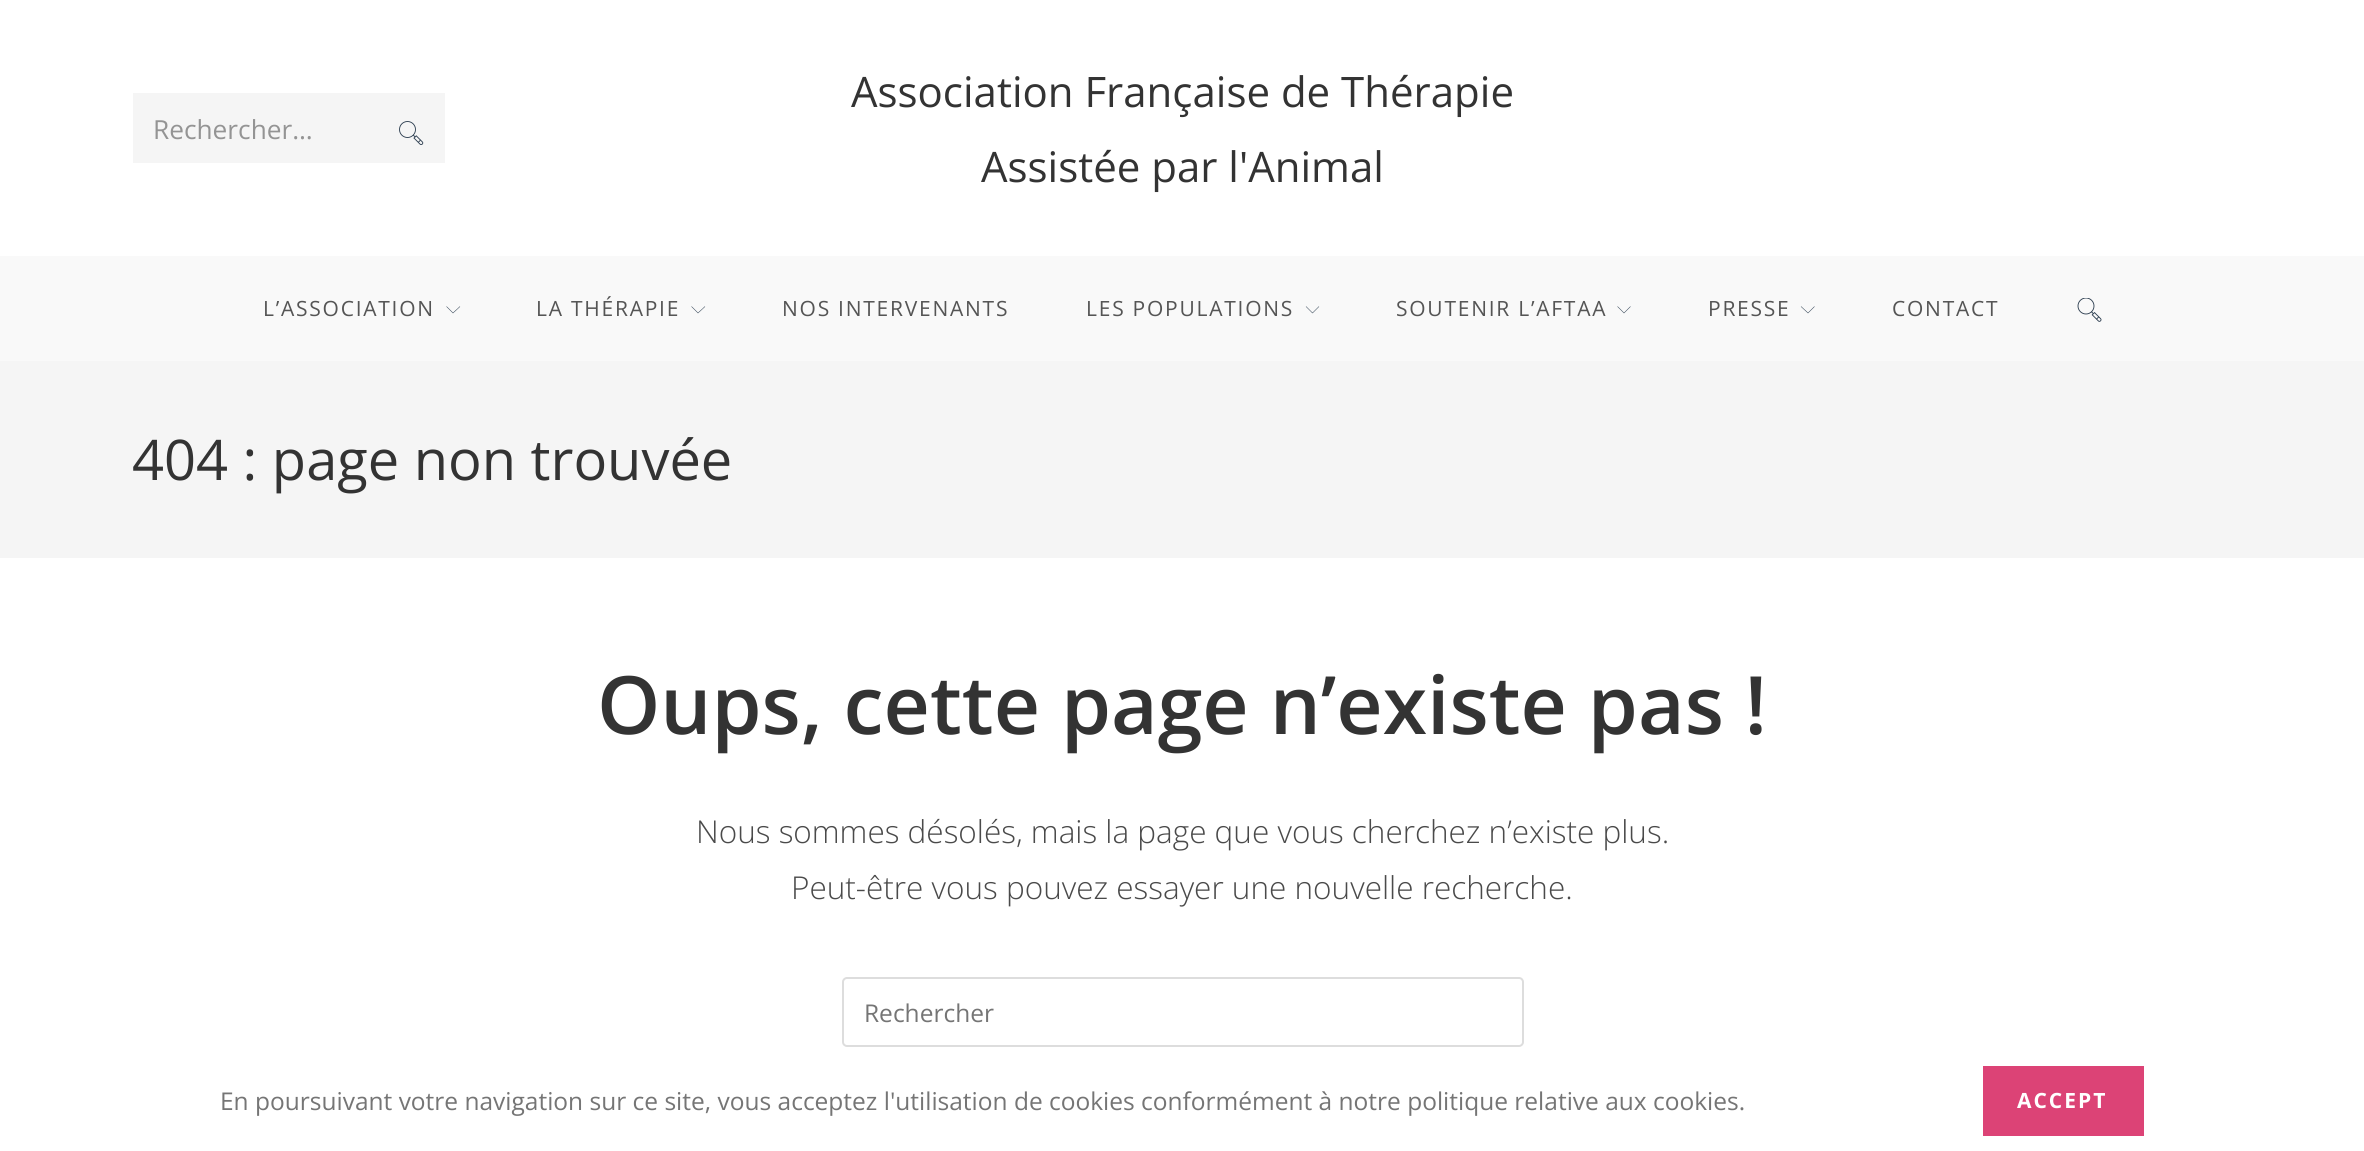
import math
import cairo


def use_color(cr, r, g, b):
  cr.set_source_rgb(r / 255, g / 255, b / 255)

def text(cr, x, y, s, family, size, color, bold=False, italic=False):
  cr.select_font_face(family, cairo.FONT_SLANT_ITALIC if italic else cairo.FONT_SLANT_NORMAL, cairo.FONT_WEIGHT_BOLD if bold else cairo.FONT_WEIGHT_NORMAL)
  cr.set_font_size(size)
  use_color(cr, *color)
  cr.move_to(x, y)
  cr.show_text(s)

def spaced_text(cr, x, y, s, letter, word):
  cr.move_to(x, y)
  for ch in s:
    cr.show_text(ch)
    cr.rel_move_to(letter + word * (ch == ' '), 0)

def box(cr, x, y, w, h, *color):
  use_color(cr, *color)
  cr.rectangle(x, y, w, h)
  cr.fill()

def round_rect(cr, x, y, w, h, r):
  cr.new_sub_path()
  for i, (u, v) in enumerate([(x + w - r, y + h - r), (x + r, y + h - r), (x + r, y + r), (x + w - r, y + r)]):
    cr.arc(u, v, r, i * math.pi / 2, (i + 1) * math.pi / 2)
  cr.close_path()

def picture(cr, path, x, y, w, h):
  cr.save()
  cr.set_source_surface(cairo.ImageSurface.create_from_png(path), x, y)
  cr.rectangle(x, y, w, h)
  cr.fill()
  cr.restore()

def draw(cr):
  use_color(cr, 255, 255, 255)
  cr.paint()
  box(cr, 133, 93, 312, 70, 245, 245, 245)
  picture(cr, "img_01.png", 399, 121, 25, 24)
  box(cr, 0, 256, 2364, 105, 249, 249, 249)
  cr.new_path()
  cr.move_to(460, 306.5)
  cr.line_to(453, 313)
  cr.line_to(446.5, 306.5)
  use_color(cr, 45, 62, 80)
  cr.set_line_width(0.5)
  cr.stroke()
  cr.new_path()
  cr.move_to(705, 306.5)
  cr.line_to(698, 313)
  cr.line_to(691.5, 306.5)
  cr.stroke()
  cr.new_path()
  cr.move_to(1319, 306.5)
  cr.line_to(1312.5, 313)
  cr.line_to(1306, 306.5)
  cr.stroke()
  cr.new_path()
  cr.move_to(1630.5, 306.5)
  cr.line_to(1624, 313)
  cr.line_to(1617.5, 306.5)
  cr.stroke()
  cr.new_path()
  cr.move_to(1814.5, 306.5)
  cr.line_to(1808, 313)
  cr.line_to(1801, 306.5)
  cr.stroke()
  picture(cr, "img_02.png", 2077, 298, 25, 24)
  box(cr, 0, 361, 2364, 197, 245, 245, 245)
  round_rect(cr, 843, 978, 680, 68, 4)
  use_color(cr, 221, 221, 221)
  cr.set_line_width(2)
  cr.stroke()
  box(cr, 1983, 1066, 161, 70, 220, 67, 118)
  text(cr, 153, 139, "Rechercher…", "Open Sans", 26.25, (148, 148, 148))
  text(cr, 851, 107, "Association Française de Thérapie", "Open Sans", 42, (51, 51, 51))
  text(cr, 981, 182, "Assistée par l'Animal", "Open Sans", 42, (51, 51, 51))
  cr.set_font_size(21)
  use_color(cr, 85, 85, 85)
  spaced_text(cr, 263, 316, "L’ASSOCIATION", 1.75, 0)
  spaced_text(cr, 536, 316, "LA THÉRAPIE", 1.75, 0)
  spaced_text(cr, 782, 316, "NOS INTERVENANTS", 1.75, 0)
  spaced_text(cr, 1086, 316, "LES POPULATIONS", 1.75, 0)
  spaced_text(cr, 1396, 316, "SOUTENIR L’AFTAA", 1.75, 0)
  spaced_text(cr, 1708, 316, "PRESSE", 1.75, 0)
  spaced_text(cr, 1892, 316, "CONTACT", 1.75, 0)
  text(cr, 132, 480, "404 : page non trouvée", "Open Sans", 56, (51, 51, 51))
  text(cr, 597, 734, "Oups, cette page n’existe pas !", "Open Sans SemiBold", 80.5, (51, 51, 51))
  text(cr, 696, 843, "Nous sommes désolés, mais la page que vous cherchez n’existe plus.", "Open Sans Light", 31.5, (74, 74, 74))
  text(cr, 791, 899, "Peut-être vous pouvez essayer une nouvelle recherche.", "Open Sans Light", 31.5, (74, 74, 74))
  text(cr, 864, 1022, "Rechercher", "Open Sans", 24.5, (117, 117, 117))
  text(cr, 220, 1110, "En poursuivant votre navigation sur ce site, vous acceptez l'utilisation de cookies conformément à notre politique relative aux cookies.", "Open Sans", 24.5, (117, 117, 117))
  cr.select_font_face("Open Sans", cairo.FONT_SLANT_NORMAL, cairo.FONT_WEIGHT_BOLD)
  cr.set_font_size(21)
  use_color(cr, 255, 255, 255)
  spaced_text(cr, 2017, 1108, "ACCEPT", 2, 0)


surface = cairo.ImageSurface(cairo.FORMAT_RGB24, 2364, 1151)
cr = cairo.Context(surface)
options = cairo.FontOptions()
options.set_hint_metrics(cairo.HINT_METRICS_OFF)
options.set_hint_style(cairo.HINT_STYLE_NONE)
cr.set_font_options(options)
cr.set_miter_limit(4)
draw(cr)
surface.write_to_png("out.png")
